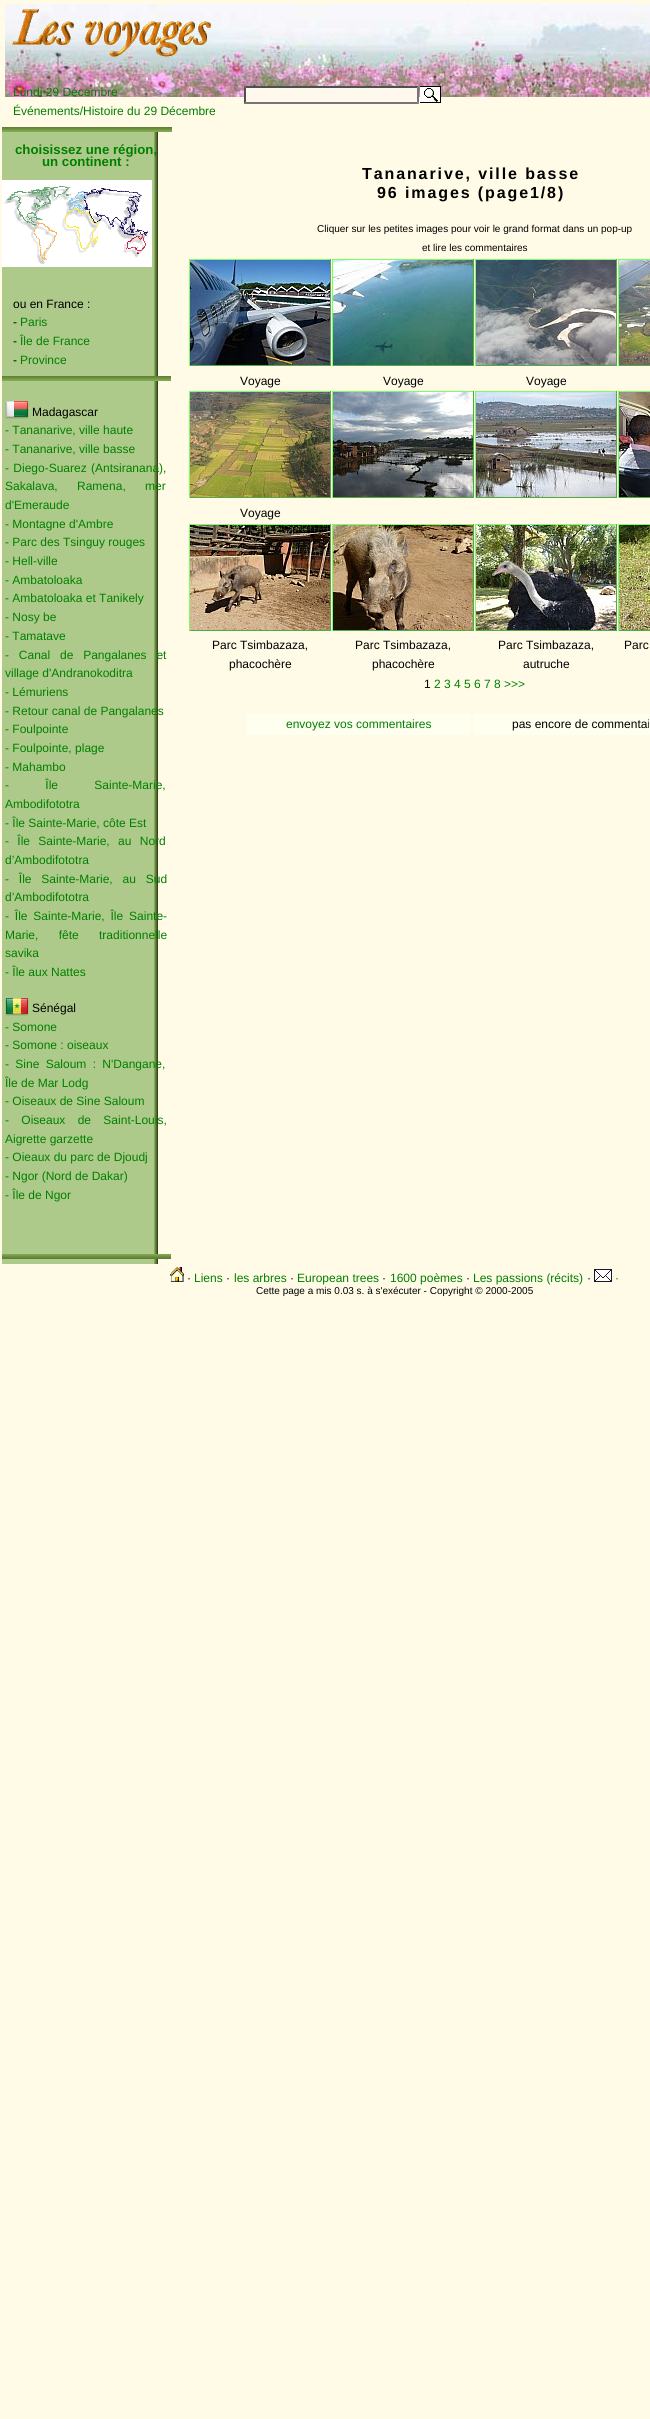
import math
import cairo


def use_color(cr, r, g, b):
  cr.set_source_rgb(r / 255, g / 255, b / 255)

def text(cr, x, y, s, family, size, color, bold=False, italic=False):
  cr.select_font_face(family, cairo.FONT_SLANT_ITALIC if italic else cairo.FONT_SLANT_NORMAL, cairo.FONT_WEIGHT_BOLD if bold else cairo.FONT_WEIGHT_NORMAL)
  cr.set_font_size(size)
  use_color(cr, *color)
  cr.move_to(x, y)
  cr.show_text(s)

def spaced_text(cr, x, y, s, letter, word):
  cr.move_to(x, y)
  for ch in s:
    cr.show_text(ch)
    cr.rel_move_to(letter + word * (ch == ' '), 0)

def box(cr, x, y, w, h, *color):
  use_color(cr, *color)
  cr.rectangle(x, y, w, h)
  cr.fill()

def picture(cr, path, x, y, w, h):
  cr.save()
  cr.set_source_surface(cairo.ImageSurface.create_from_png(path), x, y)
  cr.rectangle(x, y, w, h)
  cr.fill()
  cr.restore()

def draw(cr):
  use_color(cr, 255, 251, 231)
  cr.paint()
  picture(cr, "img_01.png", 5, 4, 645, 93)
  picture(cr, "img_02.png", 12, 9, 199, 48)
  box(cr, 244, 86, 175, 18, 255, 249, 237)
  use_color(cr, 79, 79, 79)
  cr.new_path()
  cr.move_to(244, 86)
  cr.line_to(419, 86)
  cr.line_to(417, 88)
  cr.line_to(246, 88)
  cr.close_path()
  cr.fill()
  use_color(cr, 118, 118, 118)
  cr.new_path()
  cr.move_to(419, 86)
  cr.line_to(419, 104)
  cr.line_to(417, 102)
  cr.line_to(417, 88)
  cr.close_path()
  cr.fill()
  cr.new_path()
  cr.move_to(419, 104)
  cr.line_to(244, 104)
  cr.line_to(246, 102)
  cr.line_to(417, 102)
  cr.close_path()
  cr.fill()
  use_color(cr, 79, 79, 79)
  cr.new_path()
  cr.move_to(244, 104)
  cr.line_to(244, 86)
  cr.line_to(246, 88)
  cr.line_to(246, 102)
  cr.close_path()
  cr.fill()
  picture(cr, "img_03.png", 420, 86, 21, 17)
  picture(cr, "img_04.png", 2, 132, 156, 1132)
  picture(cr, "img_05.png", 2, 127, 170, 5)
  picture(cr, "img_06.png", 2, 180, 150, 87)
  picture(cr, "img_07.png", 2, 376, 169, 5)
  picture(cr, "img_08.png", 5, 401, 24, 18)
  picture(cr, "img_09.png", 5, 998, 24, 18)
  picture(cr, "img_10.png", 2, 1254, 169, 5)
  box(cr, 618, 259, 32, 1, 121, 255, 101)
  box(cr, 618, 365, 32, 1, 81, 170, 67)
  box(cr, 618, 259, 1, 107, 121, 255, 101)
  picture(cr, "img_11.png", 619, 260, 31, 105)
  box(cr, 189, 259, 142, 1, 121, 255, 101)
  box(cr, 330, 259, 1, 107, 81, 170, 67)
  box(cr, 189, 365, 142, 1, 81, 170, 67)
  box(cr, 189, 259, 1, 107, 121, 255, 101)
  picture(cr, "img_12.png", 190, 260, 140, 105)
  box(cr, 332, 259, 142, 1, 121, 255, 101)
  box(cr, 473, 259, 1, 107, 81, 170, 67)
  box(cr, 332, 365, 142, 1, 81, 170, 67)
  box(cr, 332, 259, 1, 107, 121, 255, 101)
  picture(cr, "img_13.png", 333, 260, 140, 105)
  box(cr, 475, 259, 142, 1, 121, 255, 101)
  box(cr, 616, 259, 1, 107, 81, 170, 67)
  box(cr, 475, 365, 142, 1, 81, 170, 67)
  box(cr, 475, 259, 1, 107, 121, 255, 101)
  picture(cr, "img_14.png", 476, 260, 140, 105)
  box(cr, 332, 391, 142, 1, 121, 255, 101)
  box(cr, 473, 391, 1, 107, 81, 170, 67)
  box(cr, 332, 497, 142, 1, 81, 170, 67)
  box(cr, 332, 391, 1, 107, 121, 255, 101)
  picture(cr, "img_15.png", 333, 392, 140, 105)
  box(cr, 475, 391, 142, 1, 121, 255, 101)
  box(cr, 616, 391, 1, 107, 81, 170, 67)
  box(cr, 475, 497, 142, 1, 81, 170, 67)
  box(cr, 475, 391, 1, 107, 121, 255, 101)
  picture(cr, "img_16.png", 476, 392, 140, 105)
  box(cr, 618, 391, 32, 1, 121, 255, 101)
  box(cr, 618, 497, 32, 1, 81, 170, 67)
  box(cr, 618, 391, 1, 107, 121, 255, 101)
  picture(cr, "img_17.png", 619, 392, 31, 105)
  box(cr, 189, 391, 142, 1, 121, 255, 101)
  box(cr, 330, 391, 1, 107, 81, 170, 67)
  box(cr, 189, 497, 142, 1, 81, 170, 67)
  box(cr, 189, 391, 1, 107, 121, 255, 101)
  picture(cr, "img_18.png", 190, 392, 140, 105)
  box(cr, 189, 524, 142, 1, 121, 255, 101)
  box(cr, 330, 524, 1, 107, 81, 170, 67)
  box(cr, 189, 630, 142, 1, 81, 170, 67)
  box(cr, 189, 524, 1, 107, 121, 255, 101)
  picture(cr, "img_19.png", 190, 525, 140, 105)
  box(cr, 332, 524, 142, 1, 121, 255, 101)
  box(cr, 473, 524, 1, 107, 81, 170, 67)
  box(cr, 332, 630, 142, 1, 81, 170, 67)
  box(cr, 332, 524, 1, 107, 121, 255, 101)
  picture(cr, "img_20.png", 333, 525, 140, 105)
  box(cr, 475, 524, 142, 1, 121, 255, 101)
  box(cr, 616, 524, 1, 107, 81, 170, 67)
  box(cr, 475, 630, 142, 1, 81, 170, 67)
  box(cr, 475, 524, 1, 107, 121, 255, 101)
  picture(cr, "img_21.png", 476, 525, 140, 105)
  box(cr, 618, 524, 32, 1, 121, 255, 101)
  box(cr, 618, 630, 32, 1, 81, 170, 67)
  box(cr, 618, 524, 1, 107, 121, 255, 101)
  picture(cr, "img_22.png", 619, 525, 31, 105)
  box(cr, 247, 714, 224, 21, 255, 255, 239)
  box(cr, 473, 714, 177, 21, 255, 255, 239)
  picture(cr, "img_23.png", 170, 1267, 14, 15)
  picture(cr, "img_24.png", 594, 1269, 18, 13)
  text(cr, 13, 96, "Lundi 29 Décembre", "Liberation Sans", 12, (0, 128, 0))
  text(cr, 13, 115, "Événements/Histoire du 29 Décembre", "Liberation Sans", 12, (0, 128, 0))
  text(cr, 15, 154, "choisissez une région,", "Liberation Sans", 13.25, (0, 128, 0), bold=True)
  text(cr, 42, 166, "un continent :", "Liberation Sans", 13.25, (0, 128, 0), bold=True)
  text(cr, 13, 308, "ou en France :", "Liberation Sans", 12, (0, 0, 0))
  text(cr, 13, 326, "-", "Liberation Sans", 12, (0, 0, 0))
  text(cr, 20, 326, "Paris", "Liberation Sans", 12, (0, 128, 0))
  text(cr, 13, 345, "-", "Liberation Sans", 12, (0, 0, 0))
  text(cr, 20, 345, "Île de France", "Liberation Sans", 12, (0, 128, 0))
  text(cr, 13, 364, "-", "Liberation Sans", 12, (0, 0, 0))
  text(cr, 20, 364, "Province", "Liberation Sans", 12, (0, 128, 0))
  text(cr, 32, 416, "Madagascar", "Liberation Sans", 12, (0, 0, 0))
  text(cr, 5, 434, "- Tananarive, ville haute", "Liberation Sans", 12, (0, 128, 0))
  text(cr, 5, 453, "- Tananarive, ville basse", "Liberation Sans", 12, (0, 128, 0))
  spaced_text(cr, 5, 472, "- Diego-Suarez (Antsiranana),", 0, 1)
  spaced_text(cr, 5, 490, "Sakalava, Ramena, mer", 0, 16)
  text(cr, 5, 509, "d'Emeraude", "Liberation Sans", 12, (0, 128, 0))
  text(cr, 5, 528, "- Montagne d'Ambre", "Liberation Sans", 12, (0, 128, 0))
  text(cr, 5, 546, "- Parc des Tsinguy rouges", "Liberation Sans", 12, (0, 128, 0))
  text(cr, 5, 565, "- Hell-ville", "Liberation Sans", 12, (0, 128, 0))
  text(cr, 5, 584, "- Ambatoloaka", "Liberation Sans", 12, (0, 128, 0))
  text(cr, 5, 602, "- Ambatoloaka et Tanikely", "Liberation Sans", 12, (0, 128, 0))
  text(cr, 5, 621, "- Nosy be", "Liberation Sans", 12, (0, 128, 0))
  text(cr, 5, 640, "- Tamatave", "Liberation Sans", 12, (0, 128, 0))
  spaced_text(cr, 5, 659, "- Canal de Pangalanes et", 0, 6.5)
  text(cr, 5, 677, "village d'Andranokoditra", "Liberation Sans", 12, (0, 128, 0))
  text(cr, 5, 696, "- Lémuriens", "Liberation Sans", 12, (0, 128, 0))
  text(cr, 5, 715, "- Retour canal de Pangalanes", "Liberation Sans", 12, (0, 128, 0))
  text(cr, 5, 733, "- Foulpointe", "Liberation Sans", 12, (0, 128, 0))
  text(cr, 5, 752, "- Foulpointe, plage", "Liberation Sans", 12, (0, 128, 0))
  text(cr, 5, 771, "- Mahambo", "Liberation Sans", 12, (0, 128, 0))
  spaced_text(cr, 5, 789, "- Île Sainte-Marie,", 0, 33)
  text(cr, 5, 808, "Ambodifototra", "Liberation Sans", 12, (0, 128, 0))
  text(cr, 5, 827, "- Île Sainte-Marie, côte Est", "Liberation Sans", 12, (0, 128, 0))
  spaced_text(cr, 5, 845, "- Île Sainte-Marie, au Nord", 0, 5)
  text(cr, 5, 864, "d’Ambodifototra", "Liberation Sans", 12, (0, 128, 0))
  spaced_text(cr, 5, 883, "- Île Sainte-Marie, au Sud", 0, 6.5)
  text(cr, 5, 901, "d’Ambodifototra", "Liberation Sans", 12, (0, 128, 0))
  spaced_text(cr, 5, 920, "- Île Sainte-Marie, Île Sainte-", 0, 2.5)
  spaced_text(cr, 5, 939, "Marie, fête traditionnelle", 0, 17)
  text(cr, 5, 957, "savika", "Liberation Sans", 12, (0, 128, 0))
  text(cr, 5, 976, "- Île aux Nattes", "Liberation Sans", 12, (0, 128, 0))
  text(cr, 32, 1012, "Sénégal", "Liberation Sans", 12, (0, 0, 0))
  text(cr, 5, 1031, "- Somone", "Liberation Sans", 12, (0, 128, 0))
  text(cr, 5, 1049, "- Somone : oiseaux", "Liberation Sans", 12, (0, 128, 0))
  spaced_text(cr, 5, 1068, "- Sine Saloum : N'Dangane,", 0, 3)
  text(cr, 5, 1087, "Île de Mar Lodg", "Liberation Sans", 12, (0, 128, 0))
  text(cr, 5, 1105, "- Oiseaux de Sine Saloum", "Liberation Sans", 12, (0, 128, 0))
  spaced_text(cr, 5, 1124, "- Oiseaux de Saint-Louis,", 0, 9)
  text(cr, 5, 1143, "Aigrette garzette", "Liberation Sans", 12, (0, 128, 0))
  text(cr, 5, 1161, "- Oieaux du parc de Djoudj", "Liberation Sans", 12, (0, 128, 0))
  text(cr, 5, 1180, "- Ngor (Nord de Dakar)", "Liberation Sans", 12, (0, 128, 0))
  text(cr, 5, 1199, "- Île de Ngor", "Liberation Sans", 12, (0, 128, 0))
  cr.select_font_face("Liberation Sans", cairo.FONT_SLANT_NORMAL, cairo.FONT_WEIGHT_BOLD)
  cr.set_font_size(16)
  use_color(cr, 0, 0, 0)
  spaced_text(cr, 362, 179, "Tananarive, ville basse", 1.9, 0)
  spaced_text(cr, 377, 198, "96 images (page1/8)", 1.9, 0)
  text(cr, 317, 232, "Cliquer sur les petites images pour voir le grand format dans un pop-up", "Liberation Sans", 10, (0, 0, 0))
  text(cr, 422, 251, "et lire les commentaires", "Liberation Sans", 10, (0, 0, 0))
  text(cr, 240, 385, "Voyage", "Liberation Sans", 12, (0, 0, 0))
  text(cr, 383, 385, "Voyage", "Liberation Sans", 12, (0, 0, 0))
  text(cr, 526, 385, "Voyage", "Liberation Sans", 12, (0, 0, 0))
  text(cr, 240, 517, "Voyage", "Liberation Sans", 12, (0, 0, 0))
  text(cr, 212, 649, "Parc Tsimbazaza,", "Liberation Sans", 12, (0, 0, 0))
  text(cr, 229, 668, "phacochère", "Liberation Sans", 12, (0, 0, 0))
  text(cr, 355, 649, "Parc Tsimbazaza,", "Liberation Sans", 12, (0, 0, 0))
  text(cr, 372, 668, "phacochère", "Liberation Sans", 12, (0, 0, 0))
  text(cr, 498, 649, "Parc Tsimbazaza,", "Liberation Sans", 12, (0, 0, 0))
  text(cr, 523, 668, "autruche", "Liberation Sans", 12, (0, 0, 0))
  text(cr, 624, 649, "Parc", "Liberation Sans", 12, (0, 0, 0))
  text(cr, 424, 688, "1", "Liberation Sans", 12, (0, 0, 0))
  text(cr, 434, 688, "2 3 4 5 6 7 8 >>>", "Liberation Sans", 12, (0, 128, 0))
  text(cr, 286, 728, "envoyez vos commentaires", "Liberation Sans", 12, (0, 128, 0))
  text(cr, 512, 728, "pas encore de commentai", "Liberation Sans", 12, (0, 0, 0))
  text(cr, 187, 1282, "·", "Liberation Sans", 12, (0, 0, 0))
  text(cr, 194, 1282, "Liens", "Liberation Sans", 12, (0, 128, 0))
  text(cr, 226, 1282, "·", "Liberation Sans", 12, (0, 0, 0))
  text(cr, 234, 1282, "les arbres", "Liberation Sans", 12, (0, 128, 0))
  text(cr, 290, 1282, "·", "Liberation Sans", 12, (0, 0, 0))
  text(cr, 297, 1282, "European trees", "Liberation Sans", 12, (0, 128, 0))
  text(cr, 382, 1282, "·", "Liberation Sans", 12, (0, 0, 0))
  text(cr, 390, 1282, "1600 poèmes", "Liberation Sans", 12, (0, 128, 0))
  text(cr, 466, 1282, "·", "Liberation Sans", 12, (0, 0, 0))
  text(cr, 473, 1282, "Les passions (récits)", "Liberation Sans", 12, (0, 128, 0))
  text(cr, 587, 1282, "·", "Liberation Sans", 12, (0, 0, 0))
  text(cr, 615, 1282, "·", "Liberation Sans", 12, (0, 128, 0))
  text(cr, 256, 1294, "Cette page a mis 0.03 s. à s'exécuter - Copyright © 2000-2005", "Liberation Sans", 10, (0, 0, 0))


surface = cairo.ImageSurface(cairo.FORMAT_RGB24, 650, 2419)
cr = cairo.Context(surface)
options = cairo.FontOptions()
options.set_hint_metrics(cairo.HINT_METRICS_OFF)
options.set_hint_style(cairo.HINT_STYLE_NONE)
cr.set_font_options(options)
cr.set_miter_limit(4)
draw(cr)
surface.write_to_png("out.png")
